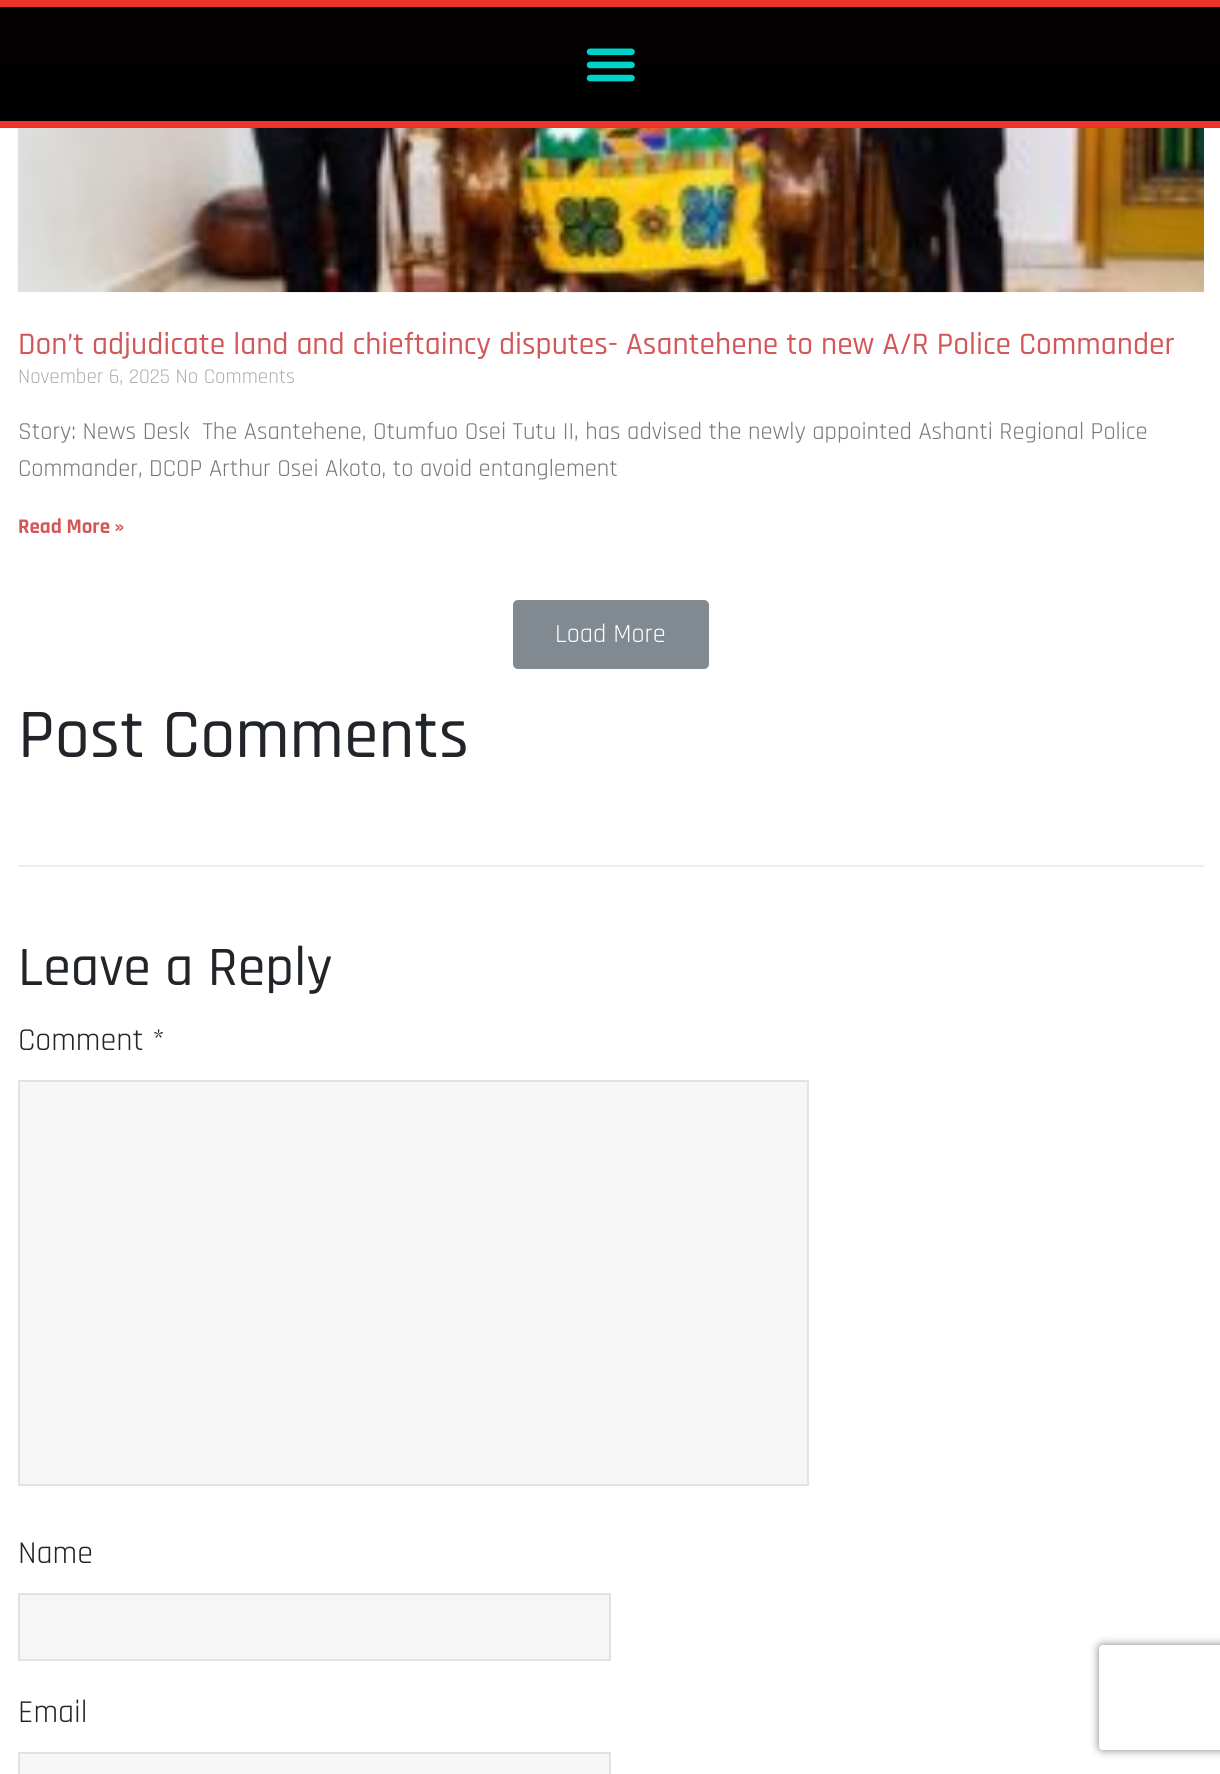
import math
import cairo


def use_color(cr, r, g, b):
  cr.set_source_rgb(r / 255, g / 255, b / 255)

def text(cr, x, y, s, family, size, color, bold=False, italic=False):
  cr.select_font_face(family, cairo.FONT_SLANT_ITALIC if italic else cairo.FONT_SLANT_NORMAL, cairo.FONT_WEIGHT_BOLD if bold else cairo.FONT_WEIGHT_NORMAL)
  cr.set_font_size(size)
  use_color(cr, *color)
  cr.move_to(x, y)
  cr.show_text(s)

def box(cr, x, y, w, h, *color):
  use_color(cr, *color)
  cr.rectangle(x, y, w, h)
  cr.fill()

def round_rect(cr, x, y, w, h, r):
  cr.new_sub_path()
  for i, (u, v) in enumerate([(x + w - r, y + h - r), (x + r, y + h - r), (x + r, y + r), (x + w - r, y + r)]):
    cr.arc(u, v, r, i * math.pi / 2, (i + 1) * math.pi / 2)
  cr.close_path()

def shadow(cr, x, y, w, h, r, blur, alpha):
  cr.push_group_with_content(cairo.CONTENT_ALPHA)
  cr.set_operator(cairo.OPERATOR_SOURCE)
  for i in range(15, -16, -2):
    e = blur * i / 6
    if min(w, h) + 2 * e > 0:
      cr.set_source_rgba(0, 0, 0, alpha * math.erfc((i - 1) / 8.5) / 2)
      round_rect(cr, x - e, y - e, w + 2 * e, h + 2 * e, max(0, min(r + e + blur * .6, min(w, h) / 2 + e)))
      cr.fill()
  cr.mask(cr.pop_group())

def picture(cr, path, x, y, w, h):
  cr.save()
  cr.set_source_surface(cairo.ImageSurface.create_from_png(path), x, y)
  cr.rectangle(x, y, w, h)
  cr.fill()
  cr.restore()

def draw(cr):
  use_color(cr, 255, 255, 255)
  cr.paint()
  gradient = cairo.LinearGradient(611, 7, 611, 121)
  gradient.add_color_stop_rgba(0, 0.02, 0.008, 0.008, 1)
  gradient.add_color_stop_rgba(1, 0, 0, 0, 1)
  cr.set_source(gradient)
  cr.rectangle(0, 7, 1220, 114)
  cr.fill()
  box(cr, 0, 0, 1220, 7, 238, 51, 42)
  box(cr, 0, 121, 1220, 7, 238, 51, 42)
  picture(cr, "img_01.png", 586, 48, 49, 34)
  picture(cr, "img_02.png", 17, 128, 1187, 165)
  use_color(cr, 129, 138, 145)
  round_rect(cr, 513, 600, 196, 69, 5)
  cr.fill()
  box(cr, 18, 865, 1186, 2, 238, 238, 238)
  use_color(cr, 246, 246, 246)
  cr.rectangle(19, 1081, 789, 404)
  cr.fill_preserve()
  use_color(cr, 226, 226, 226)
  cr.stroke()
  use_color(cr, 246, 246, 246)
  cr.rectangle(19, 1594, 591, 66)
  cr.fill_preserve()
  use_color(cr, 226, 226, 226)
  cr.stroke()
  use_color(cr, 246, 246, 246)
  cr.rectangle(19, 1753, 591, 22)
  cr.fill_preserve()
  use_color(cr, 226, 226, 226)
  cr.stroke()
  cr.save()
  cr.set_fill_rule(cairo.FILL_RULE_EVEN_ODD)
  cr.new_path()
  cr.move_to(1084, 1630)
  cr.line_to(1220, 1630)
  cr.line_to(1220, 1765)
  cr.line_to(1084, 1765)
  cr.close_path()
  cr.move_to(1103, 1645)
  cr.line_to(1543, 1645)
  cr.curve_to(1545, 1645, 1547, 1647, 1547, 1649)
  cr.line_to(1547, 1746)
  cr.curve_to(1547, 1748, 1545, 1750, 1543, 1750)
  cr.line_to(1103, 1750)
  cr.curve_to(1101, 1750, 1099, 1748, 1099, 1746)
  cr.line_to(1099, 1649)
  cr.curve_to(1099, 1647, 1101, 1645, 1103, 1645)
  cr.close_path()
  cr.clip()
  use_color(cr, 128, 128, 128)
  shadow(cr, 1099, 1645, 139, 105, 4, 4.5, 1)
  cr.restore()
  text(cr, 18, 354, "Don’t adjudicate land and chieftaincy disputes- Asantehene to new A/R Police Commander", "Rajdhani Medium", 31.5, (211, 87, 88))
  text(cr, 18, 383, "November 6, 2025 No Comments", "Rajdhani", 21, (173, 173, 173))
  text(cr, 18, 439, "Story: News Desk  The Asantehene, Otumfuo Osei Tutu II, has advised the newly appointed Ashanti Regional Police", "Rajdhani", 24.5, (119, 119, 119))
  text(cr, 18, 476, "Commander, DCOP Arthur Osei Akoto, to avoid entanglement", "Rajdhani", 24.5, (119, 119, 119))
  text(cr, 18, 533, "Read More »", "Rajdhani", 21, (211, 87, 88), bold=True)
  text(cr, 555, 642, "Load More", "Rajdhani", 26.25, (255, 255, 255))
  text(cr, 18, 757, "Post Comments", "Rajdhani Medium", 70, (33, 37, 41))
  text(cr, 18, 985, "Leave a Reply", "Rajdhani Medium", 56, (33, 37, 41))
  text(cr, 18, 1050, "Comment *", "Rajdhani", 32, (33, 37, 41))
  text(cr, 18, 1563, "Name", "Rajdhani", 32, (33, 37, 41))
  text(cr, 18, 1722, "Email", "Rajdhani", 32, (33, 37, 41))


surface = cairo.ImageSurface(cairo.FORMAT_RGB24, 1220, 1774)
cr = cairo.Context(surface)
options = cairo.FontOptions()
options.set_hint_metrics(cairo.HINT_METRICS_OFF)
options.set_hint_style(cairo.HINT_STYLE_NONE)
cr.set_font_options(options)
cr.set_miter_limit(4)
draw(cr)
surface.write_to_png("out.png")
